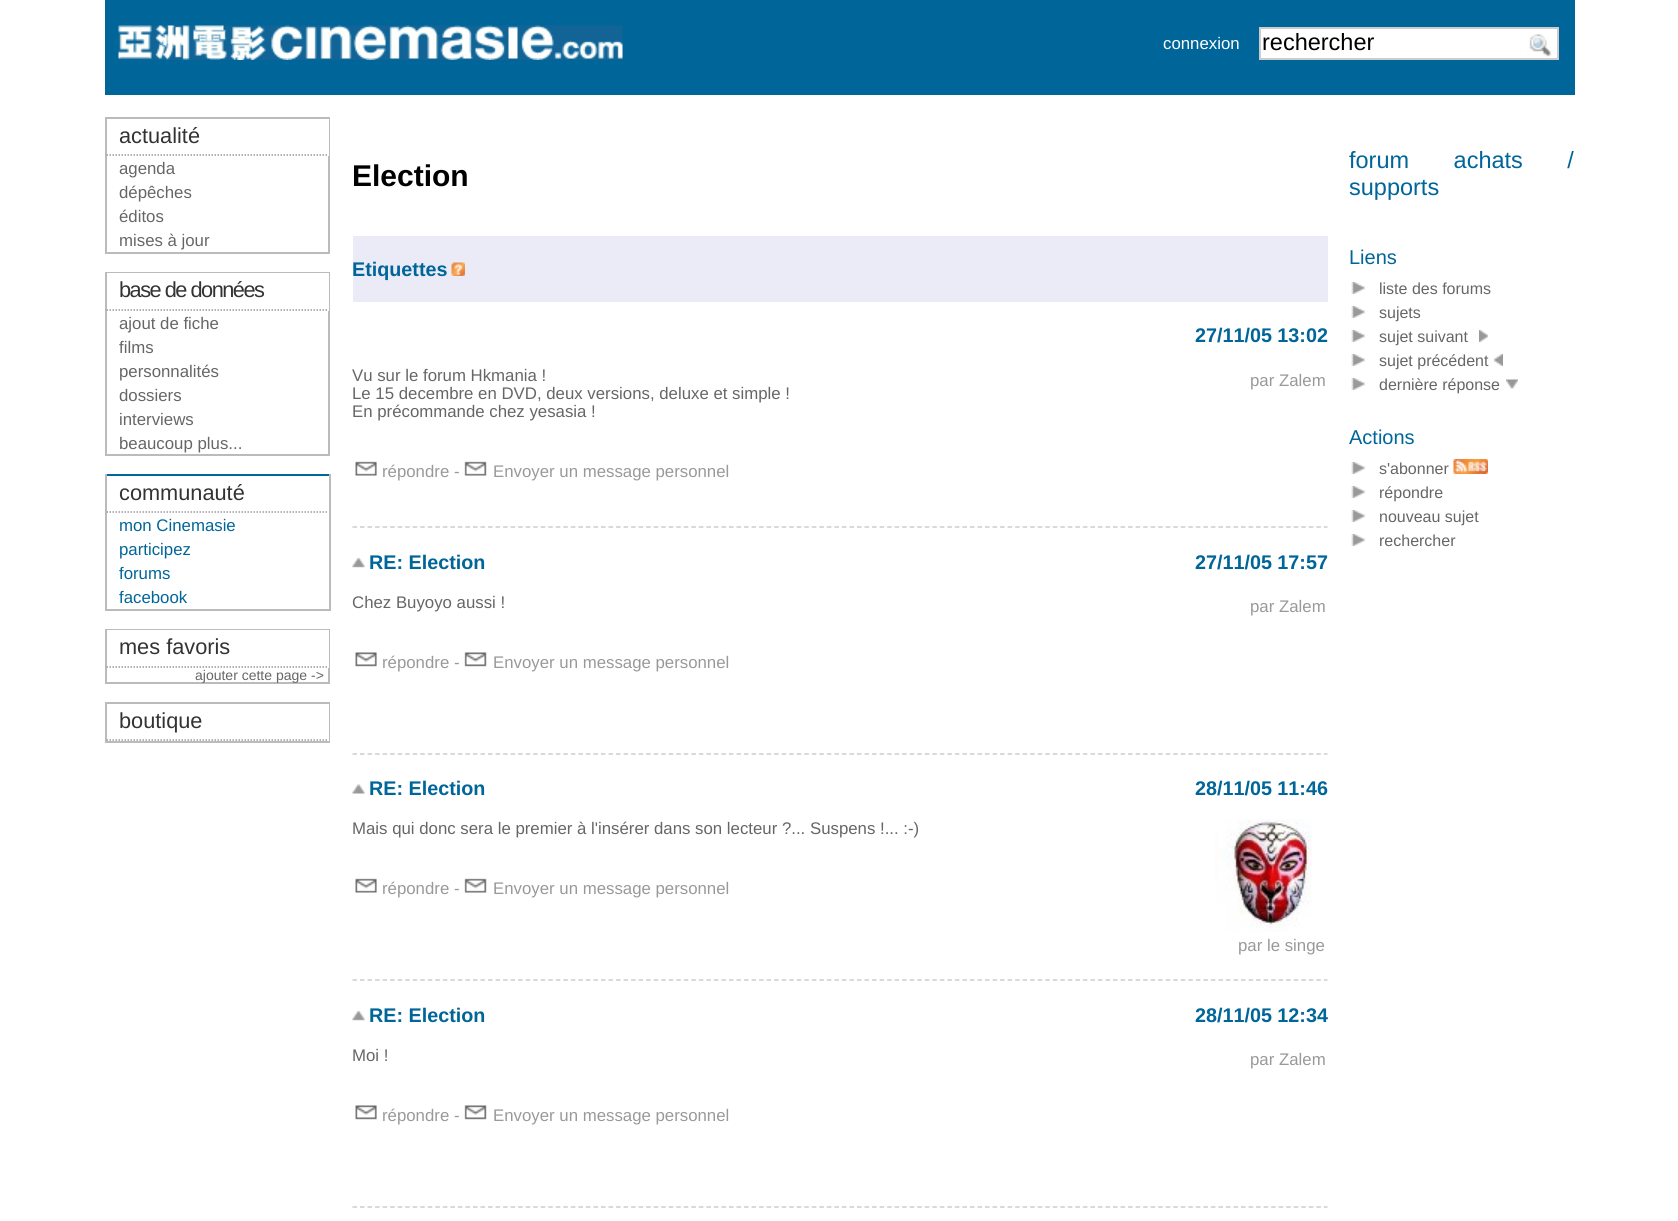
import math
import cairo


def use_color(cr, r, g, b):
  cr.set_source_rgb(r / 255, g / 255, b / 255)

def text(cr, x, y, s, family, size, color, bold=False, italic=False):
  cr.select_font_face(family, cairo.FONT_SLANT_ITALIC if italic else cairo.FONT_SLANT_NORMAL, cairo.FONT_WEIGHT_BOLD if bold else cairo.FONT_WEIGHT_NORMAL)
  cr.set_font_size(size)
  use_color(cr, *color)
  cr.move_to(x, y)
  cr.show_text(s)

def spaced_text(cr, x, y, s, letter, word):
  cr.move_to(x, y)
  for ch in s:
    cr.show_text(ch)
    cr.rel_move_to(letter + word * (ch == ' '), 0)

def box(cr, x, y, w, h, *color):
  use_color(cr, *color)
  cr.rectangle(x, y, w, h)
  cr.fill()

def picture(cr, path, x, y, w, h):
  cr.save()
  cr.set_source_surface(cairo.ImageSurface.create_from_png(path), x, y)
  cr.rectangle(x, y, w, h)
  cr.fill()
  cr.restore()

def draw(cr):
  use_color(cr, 255, 255, 255)
  cr.paint()
  box(cr, 105, 0, 1470, 95, 0, 101, 153)
  picture(cr, "img_01.png", 118, 25, 505, 35)
  box(cr, 1261, 29, 296, 29, 255, 255, 255)
  picture(cr, "img_02.png", 1527, 34, 25, 23)
  cr.rectangle(1260, 28, 298, 31)
  use_color(cr, 204, 204, 204)
  cr.stroke()
  cr.rectangle(106, 118, 223, 135)
  use_color(cr, 187, 187, 187)
  cr.stroke()
  box(cr, 328, 119, 1, 37, 255, 255, 255)
  cr.new_path()
  cr.move_to(106.5, 155)
  cr.line_to(328.5, 155)
  use_color(cr, 153, 153, 153)
  cr.set_line_width(1.5)
  cr.set_dash([1.5, 1.5])
  cr.stroke()
  cr.rectangle(106, 273, 223, 182)
  use_color(cr, 187, 187, 187)
  cr.set_line_width(2)
  cr.set_dash([])
  cr.stroke()
  box(cr, 107, 273, 222, 38, 255, 255, 255)
  cr.new_path()
  cr.move_to(106.5, 310)
  cr.line_to(328.5, 310)
  use_color(cr, 153, 153, 153)
  cr.set_line_width(1.5)
  cr.set_dash([1.5, 1.5])
  cr.stroke()
  box(cr, 105, 474, 225, 2, 0, 101, 153)
  box(cr, 329, 474, 2, 137, 187, 187, 187)
  box(cr, 105, 609, 225, 2, 187, 187, 187)
  box(cr, 105, 474, 2, 137, 187, 187, 187)
  cr.new_path()
  cr.move_to(106.5, 512)
  cr.line_to(328.5, 512)
  use_color(cr, 153, 153, 153)
  cr.stroke()
  cr.rectangle(106, 630, 223, 53)
  use_color(cr, 187, 187, 187)
  cr.set_line_width(2)
  cr.set_dash([])
  cr.stroke()
  box(cr, 107, 630, 222, 38, 255, 255, 255)
  cr.new_path()
  cr.move_to(106.5, 667)
  cr.line_to(328.5, 667)
  use_color(cr, 153, 153, 153)
  cr.set_line_width(1.5)
  cr.set_dash([1.5, 1.5])
  cr.stroke()
  cr.rectangle(106, 703, 223, 39)
  use_color(cr, 187, 187, 187)
  cr.set_line_width(2)
  cr.set_dash([])
  cr.stroke()
  box(cr, 328, 704, 1, 37, 255, 255, 255)
  cr.new_path()
  cr.move_to(106.5, 740)
  cr.line_to(328.5, 740)
  use_color(cr, 153, 153, 153)
  cr.set_line_width(1.5)
  cr.set_dash([1.5, 1.5])
  cr.stroke()
  box(cr, 353, 236, 975, 66, 235, 235, 247)
  picture(cr, "img_03.png", 451, 262, 14, 14)
  cr.new_path()
  cr.move_to(352.5, 527)
  cr.line_to(1327.5, 527)
  use_color(cr, 204, 204, 204)
  cr.set_dash([4.5, 3.03])
  cr.stroke()
  picture(cr, "img_04.png", 355, 461, 22, 15)
  picture(cr, "img_05.png", 464, 461, 23, 15)
  cr.new_path()
  cr.move_to(352.5, 754)
  cr.line_to(1327.5, 754)
  cr.stroke()
  picture(cr, "img_06.png", 352, 557, 13, 11)
  picture(cr, "img_07.png", 355, 652, 22, 15)
  picture(cr, "img_08.png", 464, 652, 23, 15)
  cr.new_path()
  cr.move_to(352.5, 980)
  cr.line_to(1327.5, 980)
  cr.stroke()
  picture(cr, "img_09.png", 352, 784, 13, 10)
  picture(cr, "img_04.png", 355, 878, 22, 15)
  picture(cr, "img_05.png", 464, 878, 23, 15)
  picture(cr, "img_10.png", 1215, 819, 97, 113)
  cr.new_path()
  cr.move_to(352.5, 1207)
  cr.line_to(1327.5, 1207)
  cr.stroke()
  picture(cr, "img_06.png", 352, 1010, 13, 11)
  picture(cr, "img_07.png", 355, 1105, 22, 15)
  picture(cr, "img_08.png", 464, 1105, 23, 15)
  picture(cr, "img_11.png", 1351, 282, 15, 12)
  picture(cr, "img_11.png", 1351, 306, 15, 12)
  picture(cr, "img_11.png", 1351, 330, 15, 12)
  picture(cr, "img_12.png", 1479, 330, 9, 12)
  picture(cr, "img_11.png", 1351, 354, 15, 12)
  picture(cr, "img_13.png", 1494, 354, 9, 12)
  picture(cr, "img_11.png", 1351, 378, 15, 12)
  picture(cr, "img_14.png", 1506, 379, 12, 10)
  picture(cr, "img_11.png", 1351, 462, 15, 12)
  picture(cr, "img_15.png", 1453, 459, 35, 15)
  picture(cr, "img_11.png", 1351, 486, 15, 12)
  picture(cr, "img_11.png", 1351, 510, 15, 12)
  picture(cr, "img_11.png", 1351, 534, 15, 12)
  text(cr, 1163, 49, "connexion", "Liberation Sans", 16.8, (255, 255, 255))
  text(cr, 1262, 50, "rechercher", "Liberation Sans", 23.5, (0, 0, 0))
  text(cr, 119, 143, "actualité", "Liberation Sans", 21.75, (51, 51, 51))
  text(cr, 119, 174, "agenda", "Liberation Sans", 16.8, (102, 102, 102))
  text(cr, 119, 198, "dépêches", "Liberation Sans", 16.8, (102, 102, 102))
  text(cr, 119, 222, "éditos", "Liberation Sans", 16.8, (102, 102, 102))
  text(cr, 119, 246, "mises à jour", "Liberation Sans", 16.8, (102, 102, 102))
  cr.set_font_size(21.75)
  use_color(cr, 51, 51, 51)
  spaced_text(cr, 119, 297, "base de données", -1.5, 0)
  text(cr, 119, 329, "ajout de fiche", "Liberation Sans", 16.8, (102, 102, 102))
  text(cr, 119, 353, "films", "Liberation Sans", 16.8, (102, 102, 102))
  text(cr, 119, 377, "personnalités", "Liberation Sans", 16.8, (102, 102, 102))
  text(cr, 119, 401, "dossiers", "Liberation Sans", 16.8, (102, 102, 102))
  text(cr, 119, 425, "interviews", "Liberation Sans", 16.8, (102, 102, 102))
  text(cr, 119, 449, "beaucoup plus...", "Liberation Sans", 16.8, (102, 102, 102))
  text(cr, 119, 500, "communauté", "Liberation Sans", 21.75, (51, 51, 51))
  text(cr, 119, 531, "mon Cinemasie", "Liberation Sans", 16.8, (0, 101, 153))
  text(cr, 119, 555, "participez", "Liberation Sans", 16.8, (0, 101, 153))
  text(cr, 119, 579, "forums", "Liberation Sans", 16.8, (0, 101, 153))
  text(cr, 119, 603, "facebook", "Liberation Sans", 16.8, (0, 101, 153))
  text(cr, 119, 654, "mes favoris", "Liberation Sans", 21.75, (51, 51, 51))
  text(cr, 195, 680, "ajouter cette page ->", "Liberation Sans", 14, (102, 102, 102))
  text(cr, 119, 728, "boutique", "Liberation Sans", 21.75, (51, 51, 51))
  text(cr, 352, 186, "Election", "Liberation Sans", 30, (0, 0, 0), bold=True)
  text(cr, 352, 276, "Etiquettes", "Liberation Sans", 19.75, (0, 101, 153), bold=True)
  text(cr, 1195, 342, "27/11/05 13:02", "Liberation Sans", 19.75, (0, 101, 153), bold=True)
  text(cr, 352, 381, "Vu sur le forum Hkmania !", "Liberation Sans", 16.8, (102, 102, 102))
  text(cr, 1250, 386, "par Zalem", "Liberation Sans", 16.8, (153, 153, 153))
  text(cr, 352, 399, "Le 15 decembre en DVD, deux versions, deluxe et simple !", "Liberation Sans", 16.8, (102, 102, 102))
  text(cr, 352, 417, "En précommande chez yesasia !", "Liberation Sans", 16.8, (102, 102, 102))
  text(cr, 382, 477, "répondre -", "Liberation Sans", 16.8, (153, 153, 153))
  text(cr, 493, 477, "Envoyer un message personnel", "Liberation Sans", 16.8, (153, 153, 153))
  text(cr, 369, 569, "RE: Election", "Liberation Sans", 19.75, (0, 101, 153), bold=True)
  text(cr, 1195, 569, "27/11/05 17:57", "Liberation Sans", 19.75, (0, 101, 153), bold=True)
  text(cr, 352, 608, "Chez Buyoyo aussi !", "Liberation Sans", 16.8, (102, 102, 102))
  text(cr, 1250, 612, "par Zalem", "Liberation Sans", 16.8, (153, 153, 153))
  text(cr, 382, 668, "répondre -", "Liberation Sans", 16.8, (153, 153, 153))
  text(cr, 493, 668, "Envoyer un message personnel", "Liberation Sans", 16.8, (153, 153, 153))
  text(cr, 369, 795, "RE: Election", "Liberation Sans", 19.75, (0, 101, 153), bold=True)
  text(cr, 1195, 795, "28/11/05 11:46", "Liberation Sans", 19.75, (0, 101, 153), bold=True)
  text(cr, 352, 834, "Mais qui donc sera le premier à l'insérer dans son lecteur ?... Suspens !... :-)", "Liberation Sans", 16.8, (102, 102, 102))
  text(cr, 382, 894, "répondre -", "Liberation Sans", 16.8, (153, 153, 153))
  text(cr, 493, 894, "Envoyer un message personnel", "Liberation Sans", 16.8, (153, 153, 153))
  text(cr, 1238, 951, "par le singe", "Liberation Sans", 16.8, (153, 153, 153))
  text(cr, 369, 1022, "RE: Election", "Liberation Sans", 19.75, (0, 101, 153), bold=True)
  text(cr, 1195, 1022, "28/11/05 12:34", "Liberation Sans", 19.75, (0, 101, 153), bold=True)
  text(cr, 352, 1061, "Moi !", "Liberation Sans", 16.8, (102, 102, 102))
  text(cr, 1250, 1065, "par Zalem", "Liberation Sans", 16.8, (153, 153, 153))
  text(cr, 382, 1121, "répondre -", "Liberation Sans", 16.8, (153, 153, 153))
  text(cr, 493, 1121, "Envoyer un message personnel", "Liberation Sans", 16.8, (153, 153, 153))
  cr.set_font_size(23.5)
  use_color(cr, 0, 101, 153)
  spaced_text(cr, 1349, 168, "forum achats /", 0, 38)
  text(cr, 1349, 195, "supports", "Liberation Sans", 23.5, (0, 101, 153))
  text(cr, 1349, 264, "Liens", "Liberation Sans", 20, (0, 101, 153))
  text(cr, 1379, 294, "liste des forums", "Liberation Sans", 16, (102, 102, 102))
  text(cr, 1379, 318, "sujets", "Liberation Sans", 16, (102, 102, 102))
  text(cr, 1379, 342, "sujet suivant", "Liberation Sans", 16, (102, 102, 102))
  text(cr, 1379, 366, "sujet précédent", "Liberation Sans", 16, (102, 102, 102))
  text(cr, 1379, 390, "dernière réponse", "Liberation Sans", 16, (102, 102, 102))
  text(cr, 1349, 444, "Actions", "Liberation Sans", 20, (0, 101, 153))
  text(cr, 1379, 474, "s'abonner", "Liberation Sans", 16, (102, 102, 102))
  text(cr, 1379, 498, "répondre", "Liberation Sans", 16, (102, 102, 102))
  text(cr, 1379, 522, "nouveau sujet", "Liberation Sans", 16, (102, 102, 102))
  text(cr, 1379, 546, "rechercher", "Liberation Sans", 16, (102, 102, 102))


surface = cairo.ImageSurface(cairo.FORMAT_RGB24, 1678, 1221)
cr = cairo.Context(surface)
options = cairo.FontOptions()
options.set_hint_metrics(cairo.HINT_METRICS_OFF)
options.set_hint_style(cairo.HINT_STYLE_NONE)
cr.set_font_options(options)
cr.set_miter_limit(4)
draw(cr)
surface.write_to_png("out.png")
